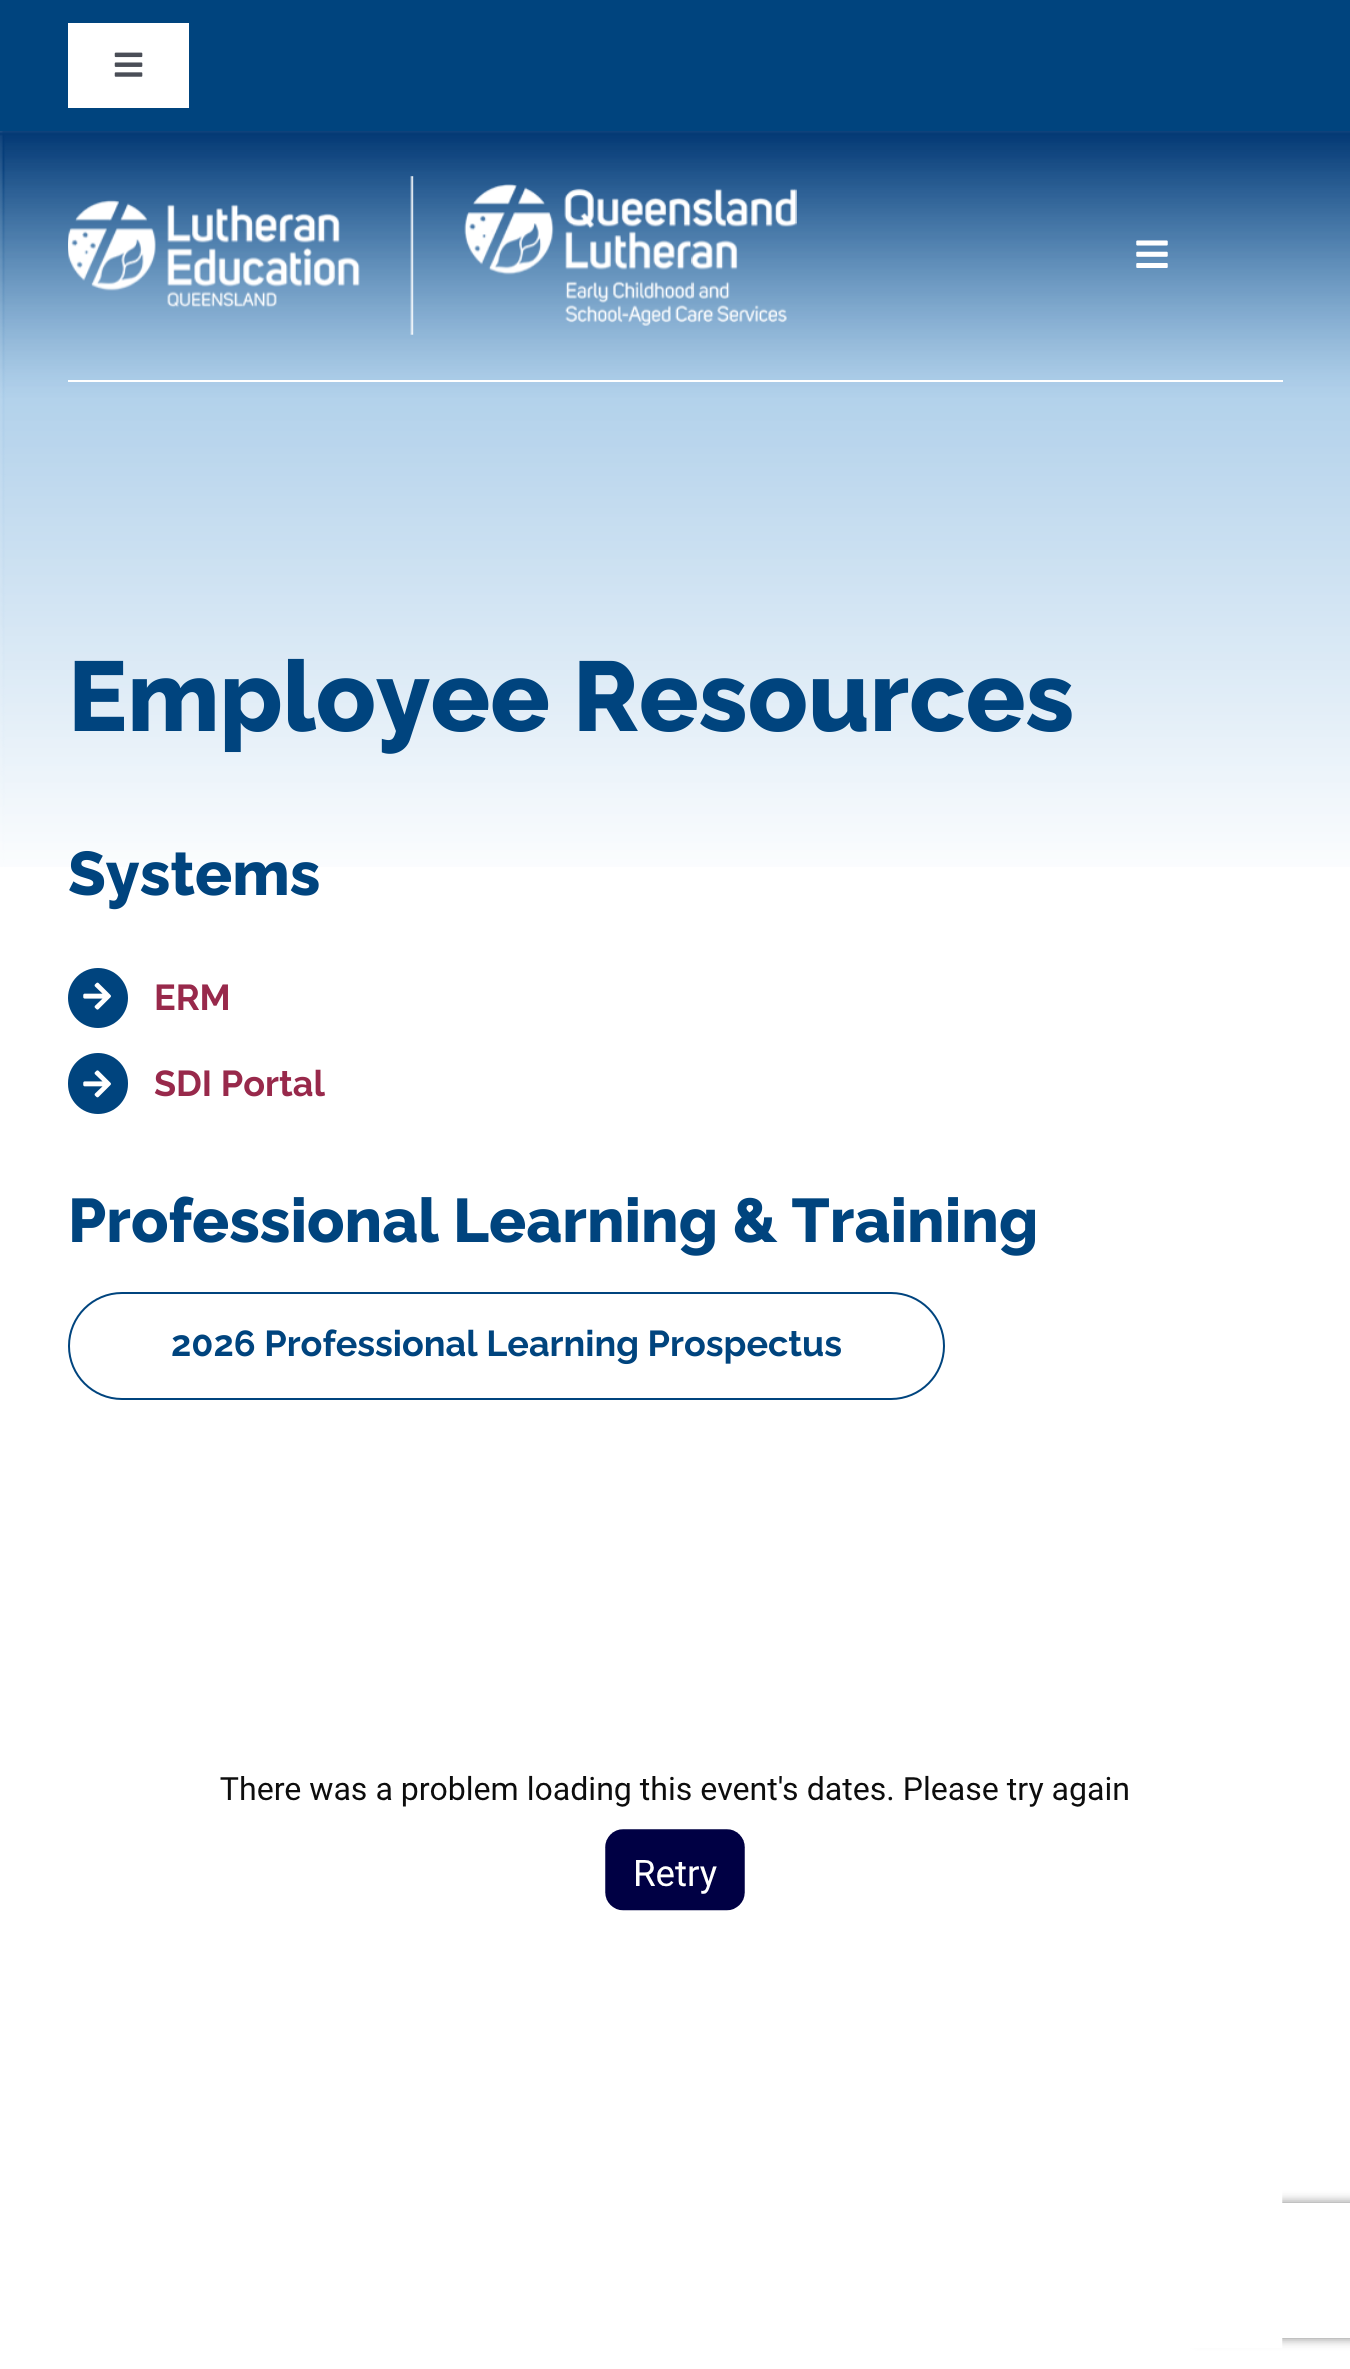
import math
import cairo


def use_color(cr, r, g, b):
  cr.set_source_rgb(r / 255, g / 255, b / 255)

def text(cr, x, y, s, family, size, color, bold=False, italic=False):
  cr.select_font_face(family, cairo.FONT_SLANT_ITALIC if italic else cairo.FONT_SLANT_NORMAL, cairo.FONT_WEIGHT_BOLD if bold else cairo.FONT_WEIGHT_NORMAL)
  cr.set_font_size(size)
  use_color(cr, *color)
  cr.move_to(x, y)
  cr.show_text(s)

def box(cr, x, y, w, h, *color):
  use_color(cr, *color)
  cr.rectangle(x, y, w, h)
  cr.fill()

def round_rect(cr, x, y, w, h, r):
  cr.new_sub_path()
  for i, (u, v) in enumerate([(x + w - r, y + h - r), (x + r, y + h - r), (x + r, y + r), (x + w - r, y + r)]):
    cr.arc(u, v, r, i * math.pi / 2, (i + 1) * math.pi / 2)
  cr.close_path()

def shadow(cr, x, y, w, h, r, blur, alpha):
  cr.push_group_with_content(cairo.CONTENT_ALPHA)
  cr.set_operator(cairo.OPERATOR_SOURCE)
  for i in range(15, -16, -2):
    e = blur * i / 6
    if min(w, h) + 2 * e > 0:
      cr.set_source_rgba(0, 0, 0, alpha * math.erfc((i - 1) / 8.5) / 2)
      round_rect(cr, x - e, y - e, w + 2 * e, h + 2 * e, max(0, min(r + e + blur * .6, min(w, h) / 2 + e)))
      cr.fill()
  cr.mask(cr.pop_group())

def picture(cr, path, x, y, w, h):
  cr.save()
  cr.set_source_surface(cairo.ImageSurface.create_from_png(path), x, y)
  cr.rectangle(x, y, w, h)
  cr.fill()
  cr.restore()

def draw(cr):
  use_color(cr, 255, 255, 255)
  cr.paint()
  box(cr, 0, 0, 1350, 131, 0, 68, 126)
  box(cr, 68, 23, 121, 85, 255, 255, 255)
  picture(cr, "img_01.png", 114, 52, 29, 25)
  picture(cr, "img_04.png", 0, 131, 1350, 736)
  picture(cr, "img_02.png", 68, 176, 729, 159)
  picture(cr, "img_03.png", 1136, 240, 32, 28)
  box(cr, 68, 380, 1215, 2, 255, 255, 255)
  use_color(cr, 0, 68, 126)
  cr.arc(98, 998, 30, 0, 2 * math.pi)
  cr.fill()
  picture(cr, "img_05.png", 83, 982, 28, 28)
  round_rect(cr, 68, 1053, 60, 61, 30)
  cr.fill()
  picture(cr, "img_06.png", 83, 1070, 28, 28)
  round_rect(cr, 69, 1293, 875, 106, 53)
  cr.stroke()
  cr.save()
  cr.set_fill_rule(cairo.FILL_RULE_EVEN_ODD)
  cr.new_path()
  cr.move_to(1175, 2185)
  cr.line_to(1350, 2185)
  cr.line_to(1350, 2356)
  cr.line_to(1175, 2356)
  cr.close_path()
  cr.move_to(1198, 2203)
  cr.line_to(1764, 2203)
  cr.curve_to(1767, 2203, 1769, 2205, 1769, 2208)
  cr.line_to(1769, 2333)
  cr.curve_to(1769, 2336, 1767, 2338, 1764, 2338)
  cr.line_to(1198, 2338)
  cr.curve_to(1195, 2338, 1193, 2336, 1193, 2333)
  cr.line_to(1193, 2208)
  cr.curve_to(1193, 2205, 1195, 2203, 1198, 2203)
  cr.close_path()
  cr.clip()
  use_color(cr, 128, 128, 128)
  shadow(cr, 1193, 2203, 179, 135, 5, 5.5, 1)
  cr.restore()
  picture(cr, "img_07.png", 220, 1775, 1063, 573)
  text(cr, 68, 731, "Employee Resources", "Raleway ExtraBold", 98.75, (0, 68, 126))
  text(cr, 68, 895, "Systems", "Raleway ExtraBold", 61.5, (0, 68, 126))
  text(cr, 154, 1010, "ERM", "Raleway", 36, (152, 41, 75), bold=True)
  text(cr, 154, 1096, "SDI Portal", "Raleway", 36, (152, 41, 75), bold=True)
  text(cr, 68, 1242, "Professional Learning & Training", "Raleway ExtraBold", 61.5, (0, 68, 126))
  text(cr, 171, 1356, "2026 Professional Learning Prospectus", "Raleway", 36, (0, 68, 126), bold=True)


surface = cairo.ImageSurface(cairo.FORMAT_RGB24, 1350, 2369)
cr = cairo.Context(surface)
options = cairo.FontOptions()
options.set_hint_metrics(cairo.HINT_METRICS_OFF)
options.set_hint_style(cairo.HINT_STYLE_NONE)
cr.set_font_options(options)
cr.set_miter_limit(4)
draw(cr)
surface.write_to_png("out.png")
